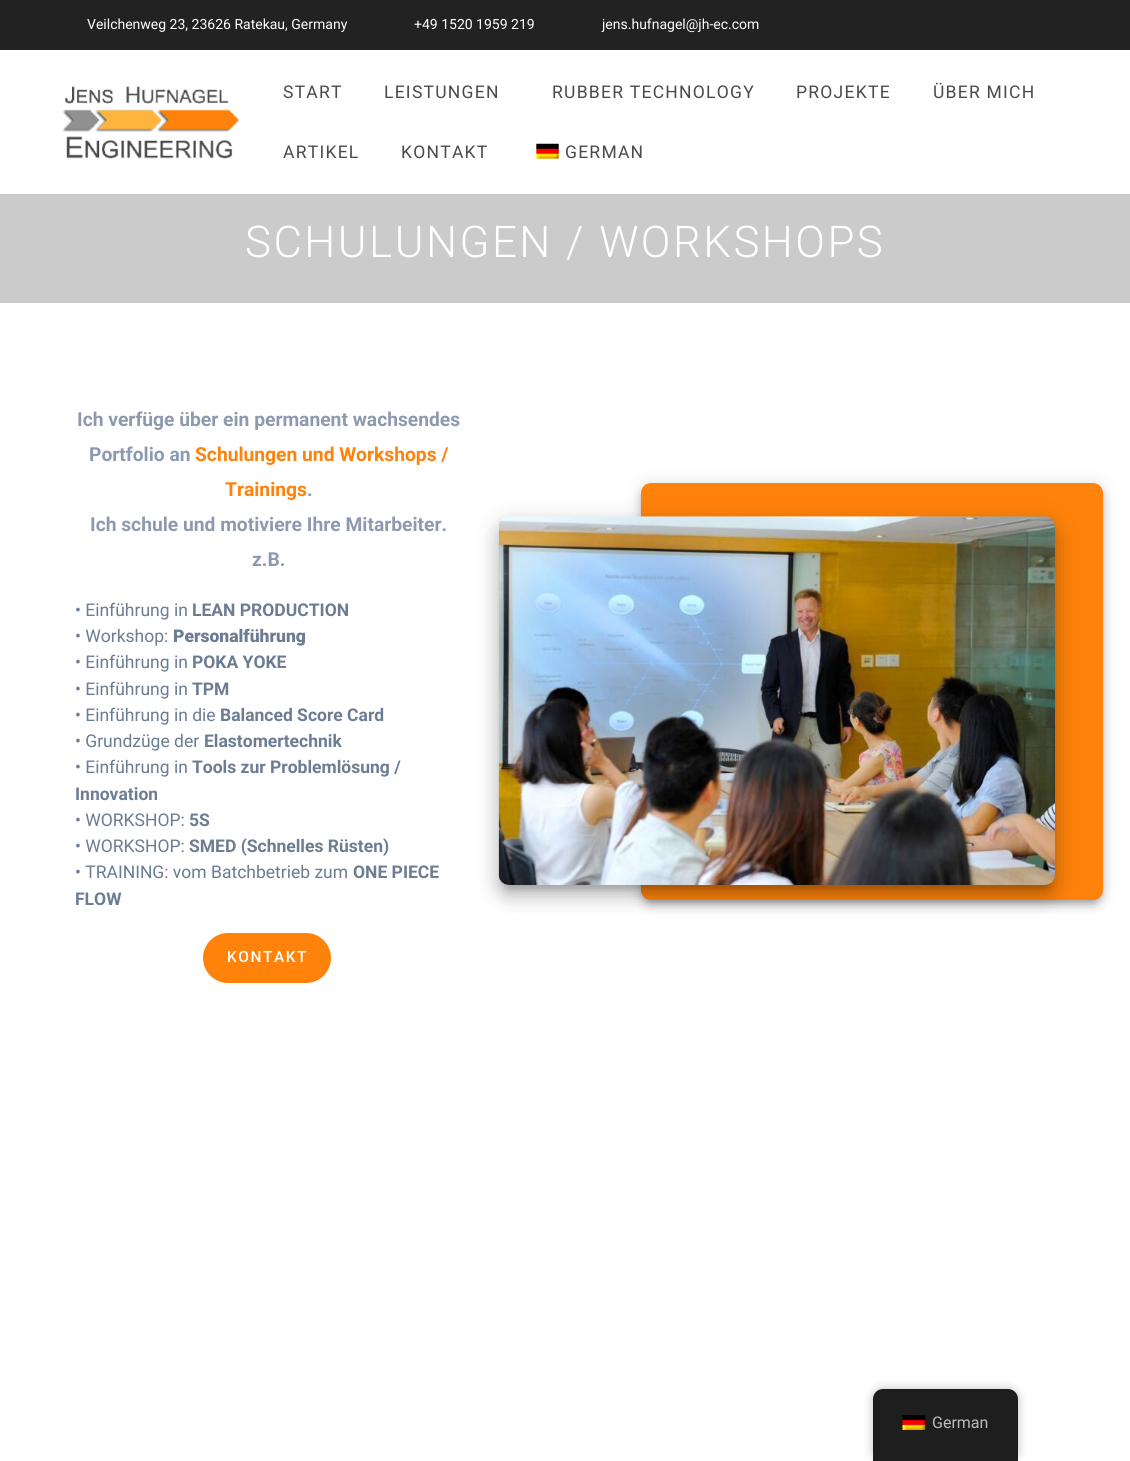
import math
import cairo


def use_color(cr, r, g, b):
  cr.set_source_rgb(r / 255, g / 255, b / 255)

def text(cr, x, y, s, family, size, color, bold=False, italic=False):
  cr.select_font_face(family, cairo.FONT_SLANT_ITALIC if italic else cairo.FONT_SLANT_NORMAL, cairo.FONT_WEIGHT_BOLD if bold else cairo.FONT_WEIGHT_NORMAL)
  cr.set_font_size(size)
  use_color(cr, *color)
  cr.move_to(x, y)
  cr.show_text(s)

def spaced_text(cr, x, y, s, letter, word):
  cr.move_to(x, y)
  for ch in s:
    cr.show_text(ch)
    cr.rel_move_to(letter + word * (ch == ' '), 0)

def box(cr, x, y, w, h, *color):
  use_color(cr, *color)
  cr.rectangle(x, y, w, h)
  cr.fill()

def round_rect(cr, x, y, w, h, r):
  cr.new_sub_path()
  for i, (u, v) in enumerate([(x + w - r, y + h - r), (x + r, y + h - r), (x + r, y + r), (x + w - r, y + r)]):
    cr.arc(u, v, r, i * math.pi / 2, (i + 1) * math.pi / 2)
  cr.close_path()

def shadow(cr, x, y, w, h, r, blur, alpha):
  cr.push_group_with_content(cairo.CONTENT_ALPHA)
  cr.set_operator(cairo.OPERATOR_SOURCE)
  for i in range(15, -16, -2):
    e = blur * i / 6
    if min(w, h) + 2 * e > 0:
      cr.set_source_rgba(0, 0, 0, alpha * math.erfc((i - 1) / 8.5) / 2)
      round_rect(cr, x - e, y - e, w + 2 * e, h + 2 * e, max(0, min(r + e + blur * .6, min(w, h) / 2 + e)))
      cr.fill()
  cr.mask(cr.pop_group())

def picture(cr, path, x, y, w, h):
  cr.save()
  cr.set_source_surface(cairo.ImageSurface.create_from_png(path), x, y)
  cr.rectangle(x, y, w, h)
  cr.fill()
  cr.restore()

def draw(cr):
  use_color(cr, 255, 255, 255)
  cr.paint()
  box(cr, 0, 0, 1130, 50, 34, 34, 34)
  picture(cr, "img_01.png", 62, 86, 177, 73)
  picture(cr, "img_02.png", 536, 143, 23, 16)
  box(cr, 0, 194, 1130, 109, 203, 203, 203)
  use_color(cr, 255, 130, 10)
  round_rect(cr, 203, 933, 128, 50, 25)
  cr.fill()
  use_color(cr, 0, 0, 0)
  shadow(cr, 641, 484, 462, 417, 10, 9, 0.12)
  shadow(cr, 641, 489, 462, 417, 10, 5, 0.14)
  shadow(cr, 643, 488, 458, 415, 9, 3, 0.2)
  use_color(cr, 255, 130, 10)
  round_rect(cr, 641, 483, 462, 417, 10)
  cr.fill()
  use_color(cr, 0, 0, 0)
  shadow(cr, 495, 518, 564, 376, 14, 11, 0.12)
  shadow(cr, 498, 528, 558, 371, 11, 9, 0.14)
  shadow(cr, 503, 528, 548, 361, 6, 4, 0.2)
  picture(cr, "img_03.png", 498, 516, 557, 369)
  shadow(cr, 873, 1389, 145, 72, 10, 5, 0.25)
  use_color(cr, 30, 30, 30)
  cr.new_path()
  cr.move_to(883, 1389)
  cr.line_to(1008, 1389)
  cr.curve_to(1013.5, 1389, 1018, 1393.5, 1018, 1399)
  cr.line_to(1018, 1461)
  cr.line_to(873, 1461)
  cr.line_to(873, 1399)
  cr.curve_to(873, 1393.5, 877.5, 1389, 883, 1389)
  cr.close_path()
  cr.fill()
  picture(cr, "img_04.png", 902, 1415, 24, 15)
  text(cr, 87, 29, "Veilchenweg 23, 23626 Ratekau, Germany", "Roboto", 14, (255, 255, 255))
  text(cr, 414, 29, "+49 1520 1959 219", "Roboto", 14, (255, 255, 255))
  text(cr, 602, 29, "jens.hufnagel@jh-ec.com", "Roboto", 14, (255, 255, 255))
  cr.set_font_size(17.5)
  use_color(cr, 74, 74, 74)
  spaced_text(cr, 283, 98, "START", 1.25, 0)
  spaced_text(cr, 384, 98, "LEISTUNGEN", 1.25, 0)
  spaced_text(cr, 552, 98, "RUBBER TECHNOLOGY", 1.25, 0)
  spaced_text(cr, 796, 98, "PROJEKTE", 1.25, 0)
  spaced_text(cr, 933, 98, "ÜBER MICH", 1.25, 0)
  spaced_text(cr, 283, 158, "ARTIKEL", 1.25, 0)
  spaced_text(cr, 401, 158, "KONTAKT", 1.25, 0)
  spaced_text(cr, 565, 158, "GERMAN", 1.25, 0)
  cr.select_font_face("Roboto Light")
  cr.set_font_size(43.75)
  use_color(cr, 255, 255, 255)
  spaced_text(cr, 245, 257, "SCHULUNGEN / WORKSHOPS", 2.5, 0)
  text(cr, 77, 426, "Ich verfüge über ein permanent wachsendes", "Roboto", 19.25, (141, 153, 174), bold=True)
  text(cr, 89, 461, "Portfolio an", "Roboto", 19.25, (141, 153, 174), bold=True)
  text(cr, 195, 461, "Schulungen und Workshops /", "Roboto", 19.25, (255, 130, 10), bold=True)
  text(cr, 225, 496, "Trainings", "Roboto", 19.25, (255, 130, 10), bold=True)
  text(cr, 307, 496, ".", "Roboto", 19.25, (141, 153, 174), bold=True)
  text(cr, 90, 531, "Ich schule und motiviere Ihre Mitarbeiter.", "Roboto", 19.25, (141, 153, 174), bold=True)
  text(cr, 252, 566, "z.B.", "Roboto", 19.25, (141, 153, 174), bold=True)
  text(cr, 75, 616, "• Einführung in", "Roboto", 17.5, (107, 124, 147))
  text(cr, 192, 616, "LEAN PRODUCTION", "Roboto", 17.5, (107, 124, 147), bold=True)
  text(cr, 75, 642, "• Workshop:", "Roboto", 17.5, (107, 124, 147))
  text(cr, 173, 642, "Personalführung", "Roboto Black", 17.5, (107, 124, 147))
  text(cr, 75, 668, "• Einführung in", "Roboto", 17.5, (107, 124, 147))
  text(cr, 192, 668, "POKA YOKE", "Roboto", 17.5, (107, 124, 147), bold=True)
  text(cr, 75, 695, "• Einführung in", "Roboto", 17.5, (107, 124, 147))
  text(cr, 192, 695, "TPM", "Roboto", 17.5, (107, 124, 147), bold=True)
  text(cr, 75, 721, "• Einführung in die", "Roboto", 17.5, (107, 124, 147))
  text(cr, 220, 721, "Balanced Score Card", "Roboto", 17.5, (107, 124, 147), bold=True)
  text(cr, 75, 747, "• Grundzüge der", "Roboto", 17.5, (107, 124, 147))
  text(cr, 204, 747, "Elastomertechnik", "Roboto", 17.5, (107, 124, 147), bold=True)
  text(cr, 75, 773, "• Einführung in", "Roboto", 17.5, (107, 124, 147))
  text(cr, 192, 773, "Tools zur Problemlösung /", "Roboto", 17.5, (107, 124, 147), bold=True)
  text(cr, 75, 800, "Innovation", "Roboto", 17.5, (107, 124, 147), bold=True)
  text(cr, 75, 826, "• WORKSHOP:", "Roboto", 17.5, (107, 124, 147))
  text(cr, 189, 826, "5S", "Roboto", 17.5, (107, 124, 147), bold=True)
  text(cr, 75, 852, "• WORKSHOP:", "Roboto", 17.5, (107, 124, 147))
  text(cr, 189, 852, "SMED (Schnelles Rüsten)", "Roboto", 17.5, (107, 124, 147), bold=True)
  text(cr, 75, 878, "• TRAINING: vom Batchbetrieb zum", "Roboto", 17.5, (107, 124, 147))
  text(cr, 353, 878, "ONE PIECE", "Roboto", 17.5, (107, 124, 147), bold=True)
  text(cr, 75, 905, "FLOW", "Roboto", 17.5, (107, 124, 147), bold=True)
  cr.select_font_face("Roboto Medium")
  cr.set_font_size(15.5)
  use_color(cr, 255, 255, 255)
  spaced_text(cr, 227, 962, "KONTAKT", 1.5, 0)
  text(cr, 932, 1428, "German", "Roboto", 16, (189, 189, 189))


surface = cairo.ImageSurface(cairo.FORMAT_RGB24, 1130, 1461)
cr = cairo.Context(surface)
options = cairo.FontOptions()
options.set_hint_metrics(cairo.HINT_METRICS_OFF)
options.set_hint_style(cairo.HINT_STYLE_NONE)
cr.set_font_options(options)
cr.set_miter_limit(4)
draw(cr)
surface.write_to_png("out.png")
